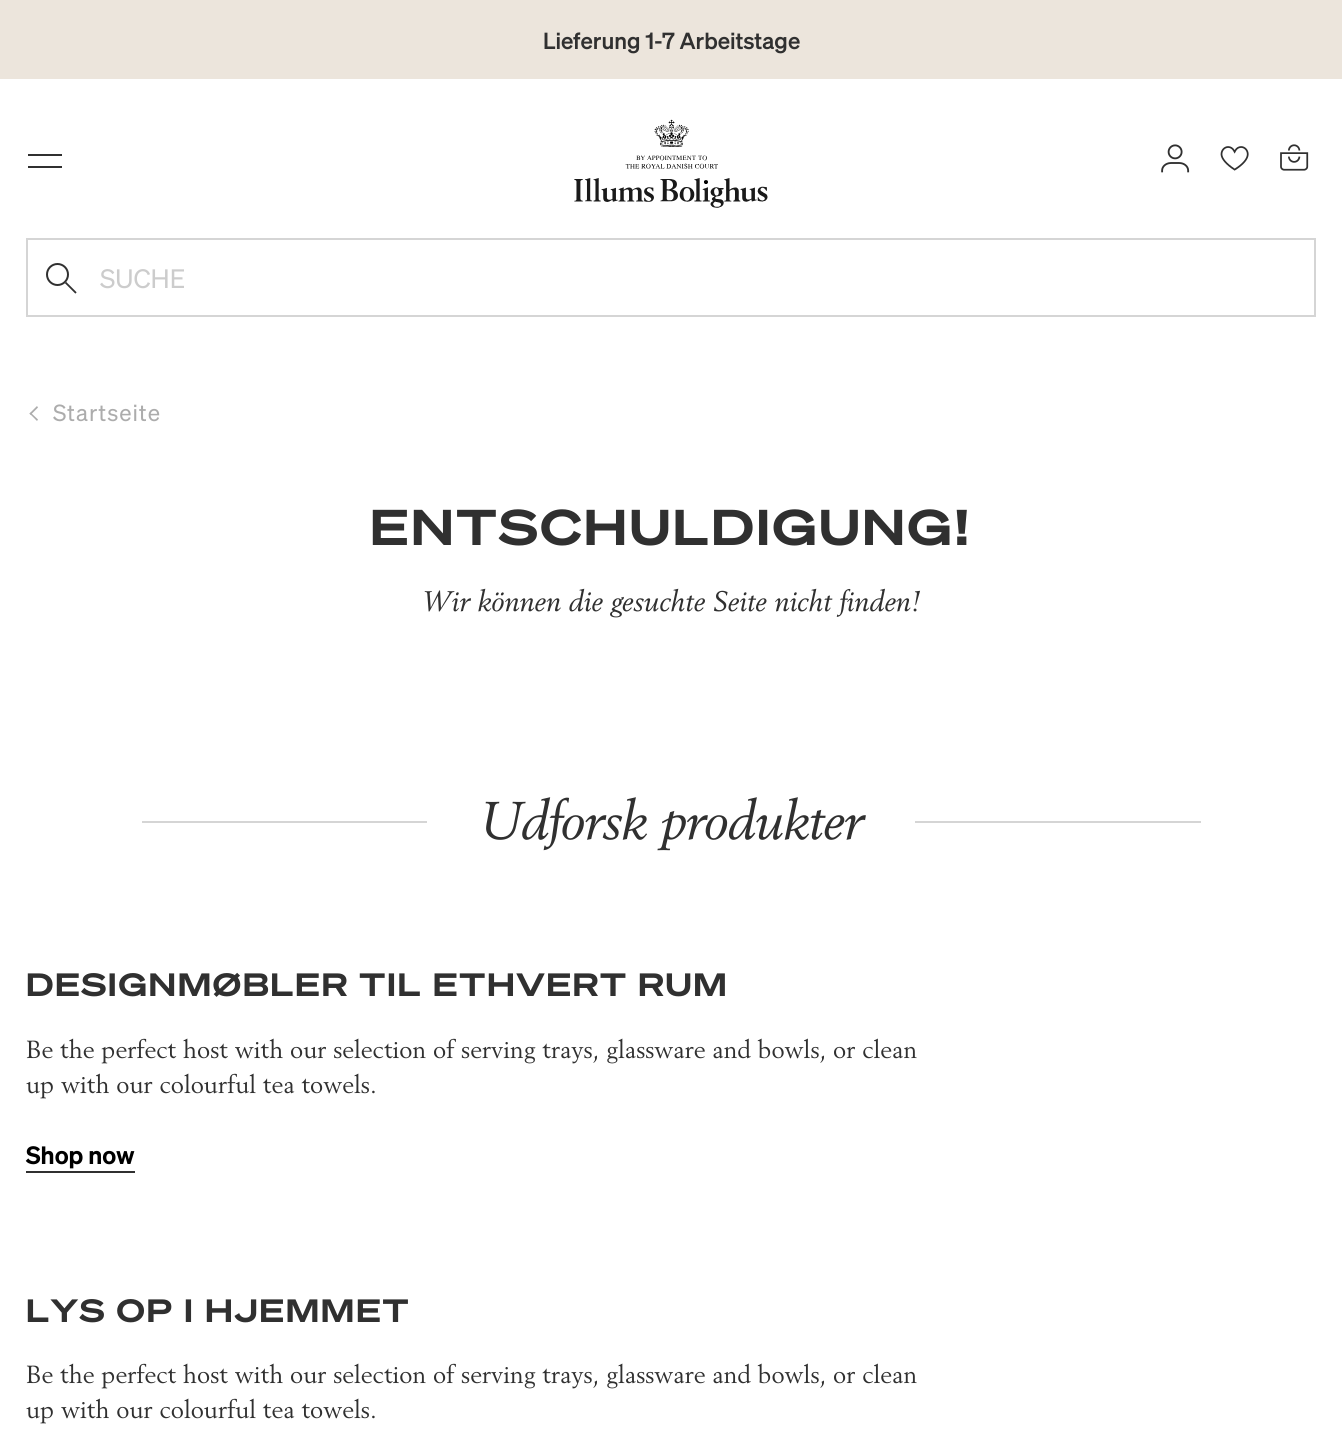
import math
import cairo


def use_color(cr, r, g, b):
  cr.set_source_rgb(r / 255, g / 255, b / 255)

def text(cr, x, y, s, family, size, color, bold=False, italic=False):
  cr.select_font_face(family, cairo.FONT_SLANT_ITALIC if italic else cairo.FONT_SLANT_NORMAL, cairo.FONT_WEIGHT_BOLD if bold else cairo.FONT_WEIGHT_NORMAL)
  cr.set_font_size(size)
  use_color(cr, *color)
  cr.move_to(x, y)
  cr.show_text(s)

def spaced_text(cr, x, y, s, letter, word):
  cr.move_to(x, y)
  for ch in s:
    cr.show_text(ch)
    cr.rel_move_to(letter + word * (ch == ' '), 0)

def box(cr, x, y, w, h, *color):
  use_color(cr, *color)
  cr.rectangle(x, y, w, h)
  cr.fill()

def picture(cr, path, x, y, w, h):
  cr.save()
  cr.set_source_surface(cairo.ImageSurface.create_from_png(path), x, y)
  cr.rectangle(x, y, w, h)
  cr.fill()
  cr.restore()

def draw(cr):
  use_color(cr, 255, 255, 255)
  cr.paint()
  box(cr, 0, 0, 1342, 79, 236, 229, 220)
  picture(cr, "img_01.png", 574, 119, 194, 89)
  box(cr, 28, 154, 34, 2, 48, 48, 48)
  box(cr, 28, 166, 34, 2, 48, 48, 48)
  picture(cr, "img_02.png", 1161, 144, 29, 29)
  picture(cr, "img_03.png", 1220, 146, 29, 25)
  picture(cr, "img_04.png", 1280, 144, 29, 27)
  cr.rectangle(27, 239, 1288, 77)
  use_color(cr, 213, 213, 213)
  cr.stroke()
  cr.arc(57.5, 274.5, 10.5, 0, 2 * math.pi)
  use_color(cr, 48, 48, 48)
  cr.stroke()
  cr.new_path()
  cr.move_to(65.5, 282.5)
  cr.line_to(76, 293)
  cr.set_line_width(1.8)
  cr.stroke()
  use_color(cr, 172, 172, 172)
  cr.new_path()
  cr.move_to(37, 421)
  cr.line_to(29.5, 413.5)
  cr.line_to(30.5, 412.5)
  cr.line_to(38, 419.5)
  cr.close_path()
  cr.fill()
  cr.new_path()
  cr.move_to(30.5, 415)
  cr.line_to(29.5, 413.5)
  cr.line_to(37, 406)
  cr.line_to(38, 407.5)
  cr.close_path()
  cr.fill()
  box(cr, 142, 821, 1059, 2, 213, 213, 213)
  box(cr, 427, 821, 488, 2, 255, 255, 255)
  box(cr, 26, 1171, 109, 2, 48, 48, 48)
  text(cr, 543, 49, "Lieferung 1-7 Arbeitstage", "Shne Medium", 22.75, (48, 48, 48))
  text(cr, 100, 288, "SUCHE", "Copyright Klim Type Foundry", 26, (204, 204, 204))
  cr.set_font_size(22.75)
  use_color(cr, 172, 172, 172)
  spaced_text(cr, 53, 421, "Startseite", 1, 0)
  cr.select_font_face("Copyright Klim Type Foundry", cairo.FONT_SLANT_NORMAL, cairo.FONT_WEIGHT_BOLD)
  cr.set_font_size(49)
  use_color(cr, 48, 48, 48)
  spaced_text(cr, 370, 545, "ENTSCHULDIGUNG!", 2.6, 0)
  text(cr, 423, 611, "Wir können die gesuchte Seite nicht finden!", "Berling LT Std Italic", 28, (48, 48, 48))
  cr.set_font_size(52.5)
  spaced_text(cr, 480, 839, "Udforsk produkter", -0.9, 0)
  cr.select_font_face("Copyright Klim Type Foundry", cairo.FONT_SLANT_NORMAL, cairo.FONT_WEIGHT_BOLD)
  cr.set_font_size(31.5)
  spaced_text(cr, 26, 996, "DESIGNMØBLER TIL ETHVERT RUM", 1.75, 0)
  text(cr, 26, 1058, "Be the perfect host with our selection of serving trays, glassware and bowls, or clean", "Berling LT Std", 24.5, (48, 48, 48))
  text(cr, 26, 1093, "up with our colourful tea towels.", "Berling LT Std", 24.5, (48, 48, 48))
  text(cr, 26, 1164, "Shop now", "Shne SemiBold", 24.5, (0, 0, 0))
  cr.select_font_face("Copyright Klim Type Foundry", cairo.FONT_SLANT_NORMAL, cairo.FONT_WEIGHT_BOLD)
  cr.set_font_size(31.5)
  use_color(cr, 48, 48, 48)
  spaced_text(cr, 26, 1322, "LYS OP I HJEMMET", 1.75, 0)
  text(cr, 26, 1383, "Be the perfect host with our selection of serving trays, glassware and bowls, or clean", "Berling LT Std", 24.5, (48, 48, 48))
  text(cr, 26, 1418, "up with our colourful tea towels.", "Berling LT Std", 24.5, (48, 48, 48))


surface = cairo.ImageSurface(cairo.FORMAT_RGB24, 1342, 1434)
cr = cairo.Context(surface)
options = cairo.FontOptions()
options.set_hint_metrics(cairo.HINT_METRICS_OFF)
options.set_hint_style(cairo.HINT_STYLE_NONE)
cr.set_font_options(options)
cr.set_miter_limit(4)
draw(cr)
surface.write_to_png("out.png")
